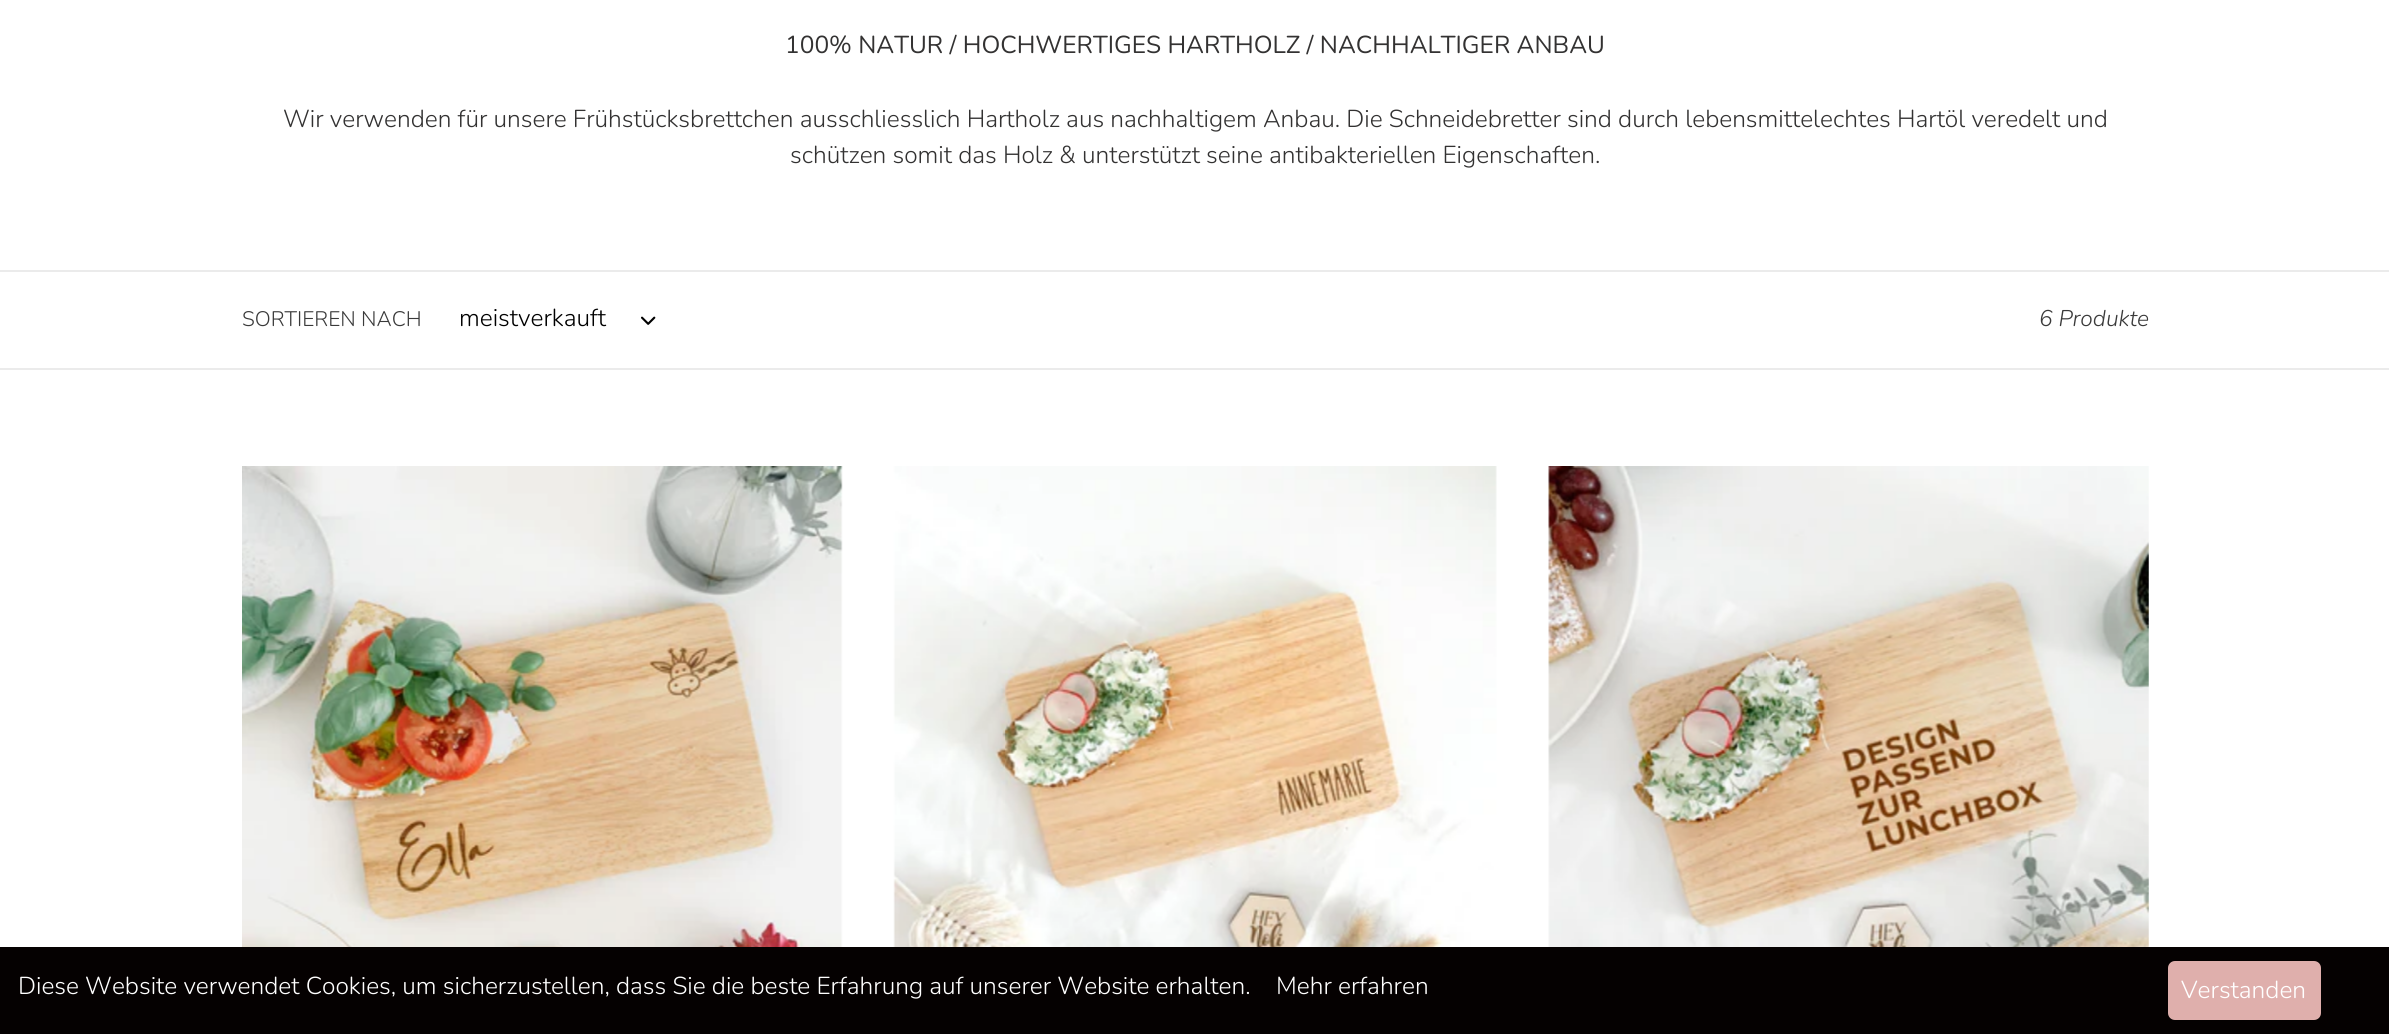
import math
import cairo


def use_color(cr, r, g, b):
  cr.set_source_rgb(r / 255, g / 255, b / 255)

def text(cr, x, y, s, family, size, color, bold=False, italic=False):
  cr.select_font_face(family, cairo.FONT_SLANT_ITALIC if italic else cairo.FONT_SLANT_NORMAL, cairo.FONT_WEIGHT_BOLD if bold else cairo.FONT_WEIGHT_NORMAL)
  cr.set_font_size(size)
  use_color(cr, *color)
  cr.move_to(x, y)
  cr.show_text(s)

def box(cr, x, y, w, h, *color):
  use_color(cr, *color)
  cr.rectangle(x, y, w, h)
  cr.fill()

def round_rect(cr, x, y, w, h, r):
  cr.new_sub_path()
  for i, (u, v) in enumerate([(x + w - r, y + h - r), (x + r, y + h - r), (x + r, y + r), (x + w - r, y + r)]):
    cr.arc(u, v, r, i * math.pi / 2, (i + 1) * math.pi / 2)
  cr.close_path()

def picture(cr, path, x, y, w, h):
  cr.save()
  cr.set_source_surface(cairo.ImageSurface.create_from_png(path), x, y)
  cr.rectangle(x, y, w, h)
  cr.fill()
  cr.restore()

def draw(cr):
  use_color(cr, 255, 255, 255)
  cr.paint()
  box(cr, 0, 270, 2389, 2, 235, 235, 235)
  box(cr, 0, 368, 2389, 2, 235, 235, 235)
  picture(cr, "img_01.png", 641, 316, 15, 9)
  picture(cr, "img_02.png", 242, 466, 601, 481)
  picture(cr, "img_03.png", 893, 466, 604, 481)
  picture(cr, "img_04.png", 1548, 466, 601, 481)
  box(cr, 0, 947, 2389, 87, 5, 1, 1)
  use_color(cr, 223, 175, 172)
  round_rect(cr, 2170, 963, 149, 55, 5)
  cr.fill_preserve()
  cr.set_line_width(4)
  cr.stroke()
  text(cr, 785, 53, "100% NATUR / HOCHWERTIGES HARTHOLZ / NACHHALTIGER ANBAU", "Nunito", 24.5, (51, 50, 50))
  text(cr, 283, 127, "Wir verwenden für unsere Frühstücksbrettchen ausschliesslich Hartholz aus nachhaltigem Anbau. Die Schneidebretter sind durch lebensmittelechtes Hartöl veredelt und", "Nunito Light", 24.5, (51, 50, 50))
  text(cr, 790, 163, "schützen somit das Holz & unterstützt seine antibakteriellen Eigenschaften.", "Nunito Light", 24.5, (51, 50, 50))
  text(cr, 242, 326, "SORTIEREN NACH", "Nunito Light", 21, (58, 58, 58))
  text(cr, 459, 326, "meistverkauft", "Nunito Light", 24.5, (0, 0, 0))
  text(cr, 2039, 326, "6 Produkte", "Nunito Light", 22.75, (58, 58, 58), italic=True)
  text(cr, 18, 994, "Diese Website verwendet Cookies, um sicherzustellen, dass Sie die beste Erfahrung auf unserer Website erhalten.", "Nunito Light", 24.5, (255, 255, 255))
  text(cr, 1276, 994, "Mehr erfahren", "Nunito Light", 24.5, (255, 255, 255))
  text(cr, 2181, 998, "Verstanden", "Nunito Light", 24.5, (255, 255, 255))


surface = cairo.ImageSurface(cairo.FORMAT_RGB24, 2389, 1034)
cr = cairo.Context(surface)
options = cairo.FontOptions()
options.set_hint_metrics(cairo.HINT_METRICS_OFF)
options.set_hint_style(cairo.HINT_STYLE_NONE)
cr.set_font_options(options)
cr.set_miter_limit(4)
draw(cr)
surface.write_to_png("out.png")
